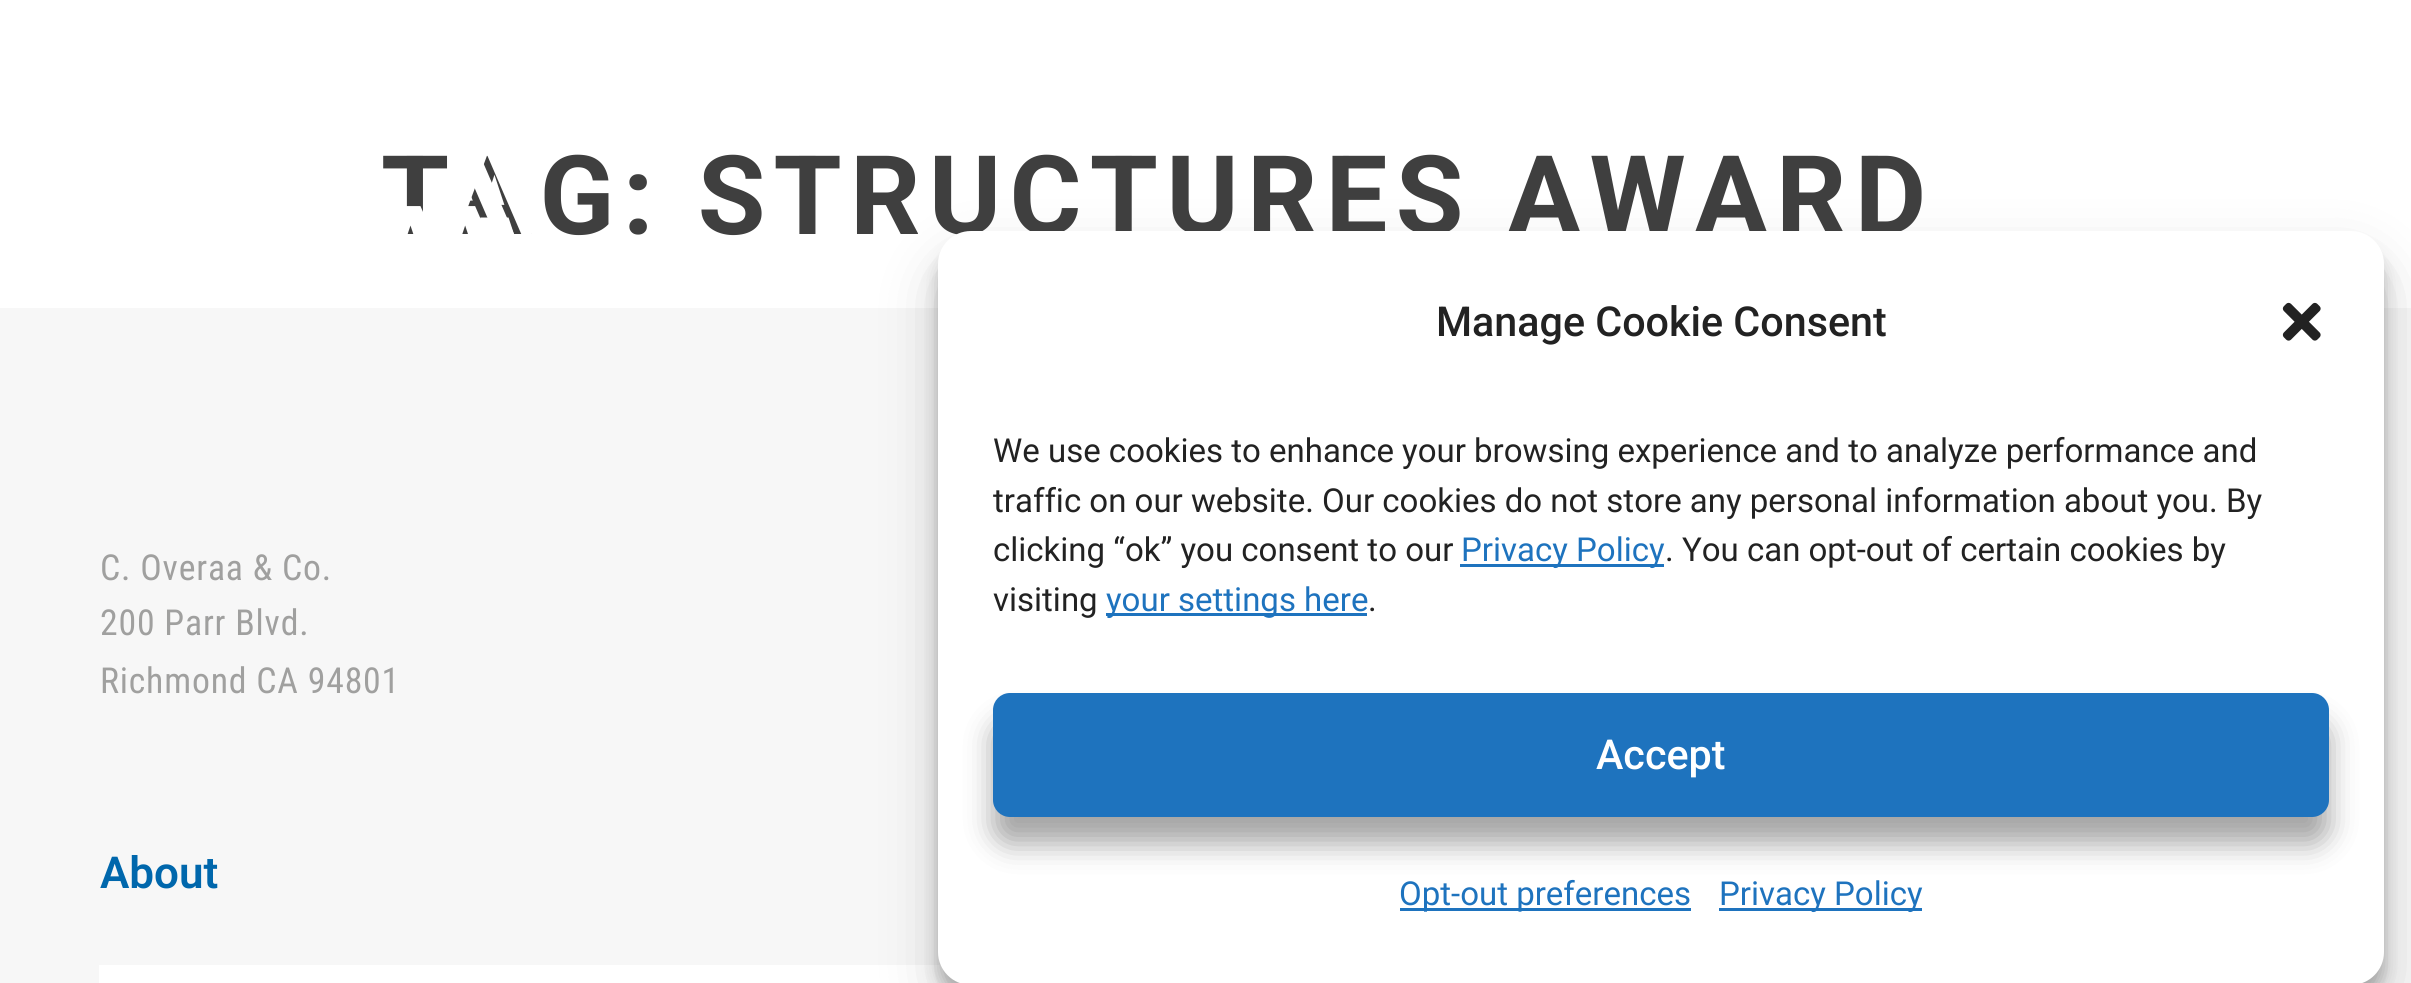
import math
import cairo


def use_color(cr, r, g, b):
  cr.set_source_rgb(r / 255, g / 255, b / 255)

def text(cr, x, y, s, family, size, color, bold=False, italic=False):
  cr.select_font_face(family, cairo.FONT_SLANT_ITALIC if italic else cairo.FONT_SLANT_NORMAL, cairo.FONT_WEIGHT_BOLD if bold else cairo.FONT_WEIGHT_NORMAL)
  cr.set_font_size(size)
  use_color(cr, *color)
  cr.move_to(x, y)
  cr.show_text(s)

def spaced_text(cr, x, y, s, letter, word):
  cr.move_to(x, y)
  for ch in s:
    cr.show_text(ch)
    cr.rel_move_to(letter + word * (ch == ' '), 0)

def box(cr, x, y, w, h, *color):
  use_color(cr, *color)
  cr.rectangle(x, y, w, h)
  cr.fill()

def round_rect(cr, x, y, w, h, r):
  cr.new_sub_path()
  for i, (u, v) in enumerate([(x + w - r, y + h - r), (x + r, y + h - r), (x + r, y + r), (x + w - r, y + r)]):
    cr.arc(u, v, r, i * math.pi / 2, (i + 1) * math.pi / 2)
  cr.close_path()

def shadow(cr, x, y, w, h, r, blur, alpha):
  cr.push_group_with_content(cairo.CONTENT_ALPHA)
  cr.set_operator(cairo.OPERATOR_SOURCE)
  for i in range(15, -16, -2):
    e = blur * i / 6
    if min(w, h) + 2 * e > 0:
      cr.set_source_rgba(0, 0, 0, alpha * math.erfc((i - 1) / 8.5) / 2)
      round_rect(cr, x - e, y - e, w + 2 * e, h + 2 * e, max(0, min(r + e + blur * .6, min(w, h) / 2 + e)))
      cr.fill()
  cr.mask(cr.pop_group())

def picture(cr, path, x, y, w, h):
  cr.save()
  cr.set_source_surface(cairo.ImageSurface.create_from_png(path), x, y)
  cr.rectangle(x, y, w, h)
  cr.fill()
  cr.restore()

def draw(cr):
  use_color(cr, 255, 255, 255)
  cr.paint()
  box(cr, 0, 308, 2411, 675, 247, 247, 247)
  box(cr, 99, 965, 861, 18, 255, 255, 255)
  use_color(cr, 0, 0, 0)
  shadow(cr, 938, 248, 1446, 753, 33, 8, 0.23)
  shadow(cr, 938, 259, 1446, 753, 33, 27.5, 0.19)
  cr.select_font_face("Roboto", cairo.FONT_SLANT_NORMAL, cairo.FONT_WEIGHT_BOLD)
  cr.set_font_size(110)
  use_color(cr, 63, 63, 63)
  spaced_text(cr, 381, 234, "TAG: STRUCTURES AWARD", 8.25, 0)
  picture(cr, "img_01.png", 406, 155, 125, 79)
  cr.select_font_face("Roboto Condensed")
  cr.set_font_size(35.75)
  use_color(cr, 160, 160, 159)
  spaced_text(cr, 100, 580, "C. Overaa & Co.", 0.8, 0)
  spaced_text(cr, 100, 635, "200 Parr Blvd.", 0.8, 0)
  spaced_text(cr, 100, 693, "Richmond CA 94801", 0.8, 0)
  text(cr, 100, 888, "About", "Roboto SemiBold", 44, (0, 103, 172))
  use_color(cr, 255, 255, 255)
  round_rect(cr, 938, 231, 1446, 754, 33)
  cr.fill()
  text(cr, 1436, 336, "Manage Cookie Consent", "Roboto Medium", 41.25, (34, 34, 34))
  picture(cr, "img_02.png", 2282, 302, 39, 39)
  text(cr, 993, 462, "We use cookies to enhance your browsing experience and to analyze performance and", "Roboto", 33, (34, 34, 34))
  text(cr, 993, 512, "traffic on our website. Our cookies do not store any personal information about you. By", "Roboto", 33, (34, 34, 34))
  text(cr, 993, 561, "clicking “ok” you consent to our", "Roboto", 33, (34, 34, 34))
  box(cr, 1460, 564, 204, 3, 30, 115, 190)
  text(cr, 1461, 561, "Privacy Policy", "Roboto", 33, (30, 115, 190))
  text(cr, 1665, 561, ". You can opt-out of certain cookies by", "Roboto", 33, (34, 34, 34))
  text(cr, 993, 611, "visiting", "Roboto", 33, (34, 34, 34))
  box(cr, 1106, 613, 261, 3, 30, 115, 190)
  text(cr, 1106, 611, "your settings here", "Roboto", 33, (30, 115, 190))
  text(cr, 1368, 611, ".", "Roboto", 33, (34, 34, 34))
  use_color(cr, 0, 0, 0)
  shadow(cr, 993, 721, 1336, 123, 17, 14, 0.35)
  use_color(cr, 30, 115, 190)
  round_rect(cr, 994.5, 694.5, 1333, 121, 15.5)
  cr.fill_preserve()
  cr.set_line_width(3)
  cr.stroke()
  text(cr, 1596, 769, "Accept", "Roboto Medium", 41.25, (255, 255, 255))
  box(cr, 1400, 908, 291, 3, 30, 115, 190)
  text(cr, 1399, 905, "Opt-out preferences", "Roboto", 33, (30, 115, 190))
  box(cr, 1719, 908, 203, 3, 30, 115, 190)
  text(cr, 1719, 905, "Privacy Policy", "Roboto", 33, (30, 115, 190))


surface = cairo.ImageSurface(cairo.FORMAT_RGB24, 2411, 983)
cr = cairo.Context(surface)
options = cairo.FontOptions()
options.set_hint_metrics(cairo.HINT_METRICS_OFF)
options.set_hint_style(cairo.HINT_STYLE_NONE)
cr.set_font_options(options)
cr.set_miter_limit(4)
draw(cr)
surface.write_to_png("out.png")
